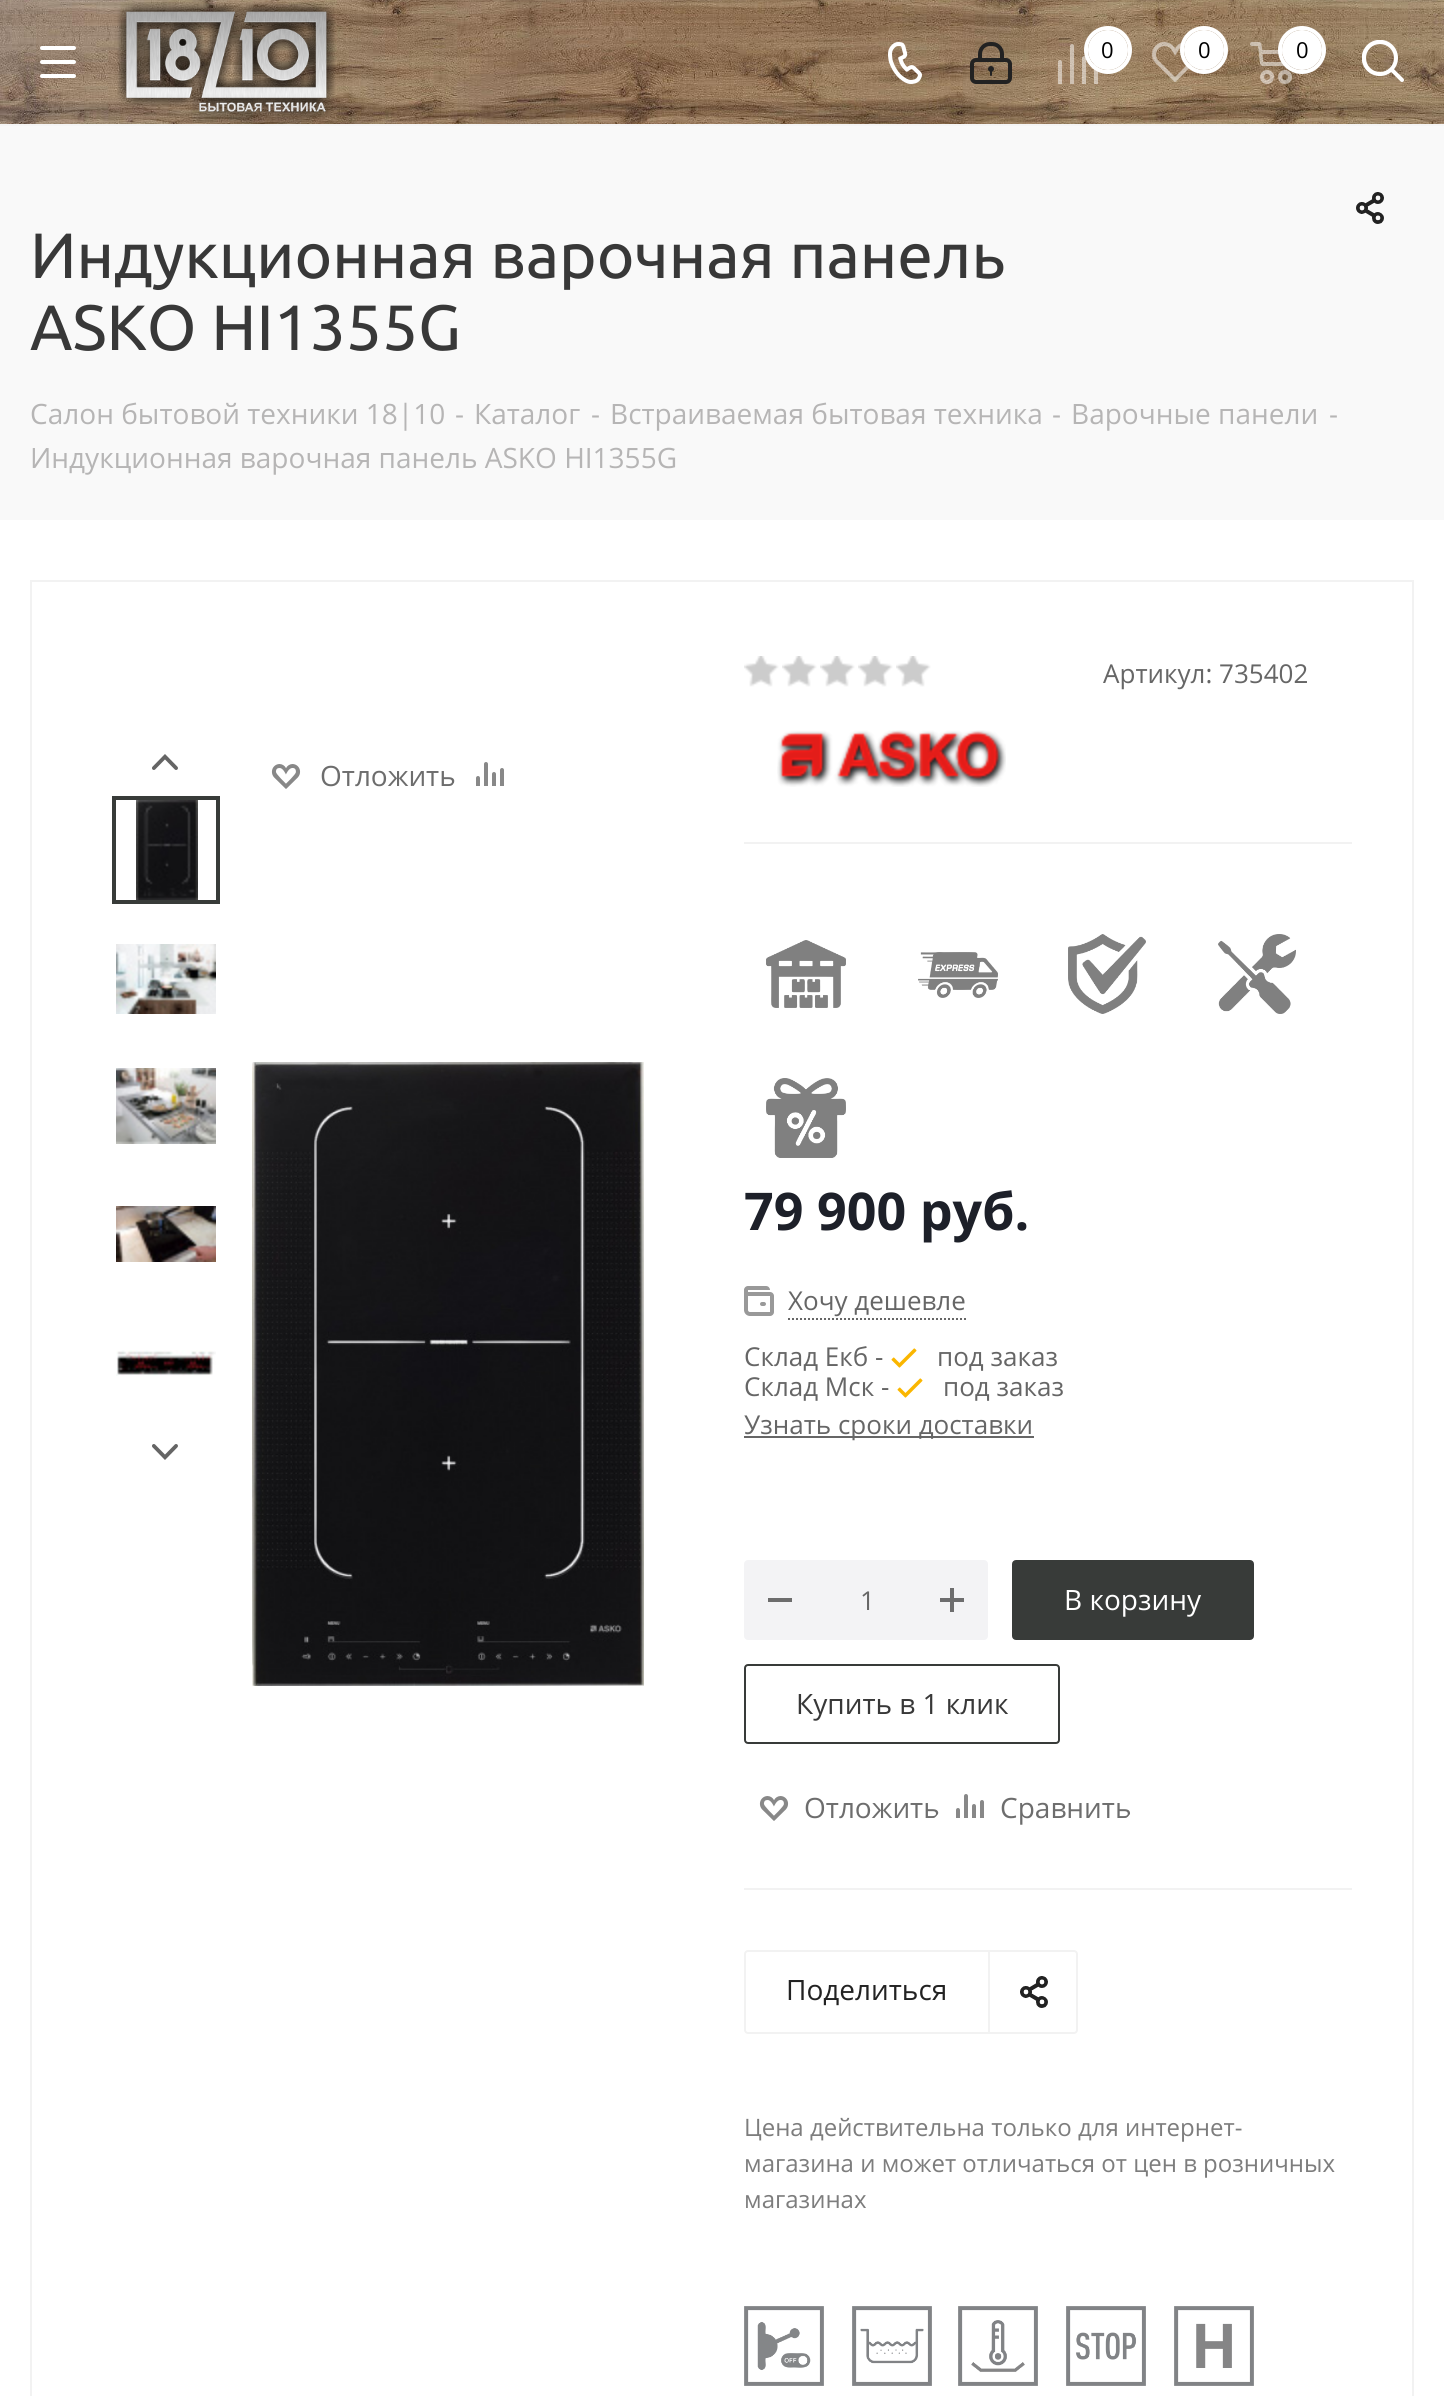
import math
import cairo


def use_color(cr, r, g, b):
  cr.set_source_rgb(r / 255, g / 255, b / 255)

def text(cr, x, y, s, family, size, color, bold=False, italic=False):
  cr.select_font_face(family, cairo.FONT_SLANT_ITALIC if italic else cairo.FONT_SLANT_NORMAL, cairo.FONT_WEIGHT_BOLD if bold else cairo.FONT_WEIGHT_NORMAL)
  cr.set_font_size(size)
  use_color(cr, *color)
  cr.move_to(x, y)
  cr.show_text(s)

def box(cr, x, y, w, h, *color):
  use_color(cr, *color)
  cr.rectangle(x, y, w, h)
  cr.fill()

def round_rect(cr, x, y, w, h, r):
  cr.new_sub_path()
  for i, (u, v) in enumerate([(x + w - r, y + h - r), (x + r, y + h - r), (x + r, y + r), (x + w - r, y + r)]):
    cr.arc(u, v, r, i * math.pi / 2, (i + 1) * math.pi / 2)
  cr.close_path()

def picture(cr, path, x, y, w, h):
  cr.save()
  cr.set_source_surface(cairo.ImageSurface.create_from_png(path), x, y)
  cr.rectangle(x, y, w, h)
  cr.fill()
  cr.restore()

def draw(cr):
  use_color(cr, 255, 255, 255)
  cr.paint()
  picture(cr, "img_01.png", 0, 0, 1444, 124)
  box(cr, 0, 124, 1444, 2, 245, 245, 245)
  picture(cr, "img_02.png", 40, 46, 36, 32)
  picture(cr, "img_03.png", 117, 2, 219, 119)
  picture(cr, "img_04.png", 888, 42, 34, 42)
  picture(cr, "img_05.png", 970, 42, 42, 42)
  picture(cr, "img_06.png", 1058, 44, 40, 40)
  cr.arc(1108, 50, 22, 0, 2 * math.pi)
  use_color(cr, 255, 255, 255)
  cr.set_line_width(4)
  cr.stroke()
  cr.arc(1108, 50, 20, 0, 2 * math.pi)
  cr.fill()
  picture(cr, "img_07.png", 1152, 42, 40, 40)
  cr.arc(1204, 50, 22, 0, 2 * math.pi)
  cr.stroke()
  cr.arc(1204, 50, 20, 0, 2 * math.pi)
  cr.fill()
  picture(cr, "img_08.png", 1250, 42, 42, 42)
  cr.arc(1302, 50, 22, 0, 2 * math.pi)
  cr.stroke()
  cr.arc(1302, 50, 20, 0, 2 * math.pi)
  cr.fill()
  picture(cr, "img_09.png", 1362, 40, 42, 42)
  box(cr, 0, 126, 1444, 394, 249, 249, 249)
  picture(cr, "img_10.png", 1356, 192, 28, 32)
  cr.rectangle(31, 581, 1382, 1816)
  use_color(cr, 242, 242, 242)
  cr.set_line_width(2)
  cr.stroke()
  picture(cr, "img_11.png", 152, 754, 26, 16)
  picture(cr, "img_12.png", 152, 1444, 26, 16)
  cr.rectangle(114, 798, 104, 104)
  use_color(cr, 56, 59, 57)
  cr.set_line_width(4)
  cr.stroke()
  picture(cr, "img_13.png", 136, 800, 62, 100)
  picture(cr, "img_14.png", 116, 944, 100, 70)
  picture(cr, "img_15.png", 116, 1068, 100, 76)
  picture(cr, "img_16.png", 116, 1206, 100, 56)
  picture(cr, "img_17.png", 116, 1350, 100, 26)
  picture(cr, "img_18.png", 271, 764, 30, 25)
  picture(cr, "img_19.png", 476, 762, 28, 24)
  picture(cr, "img_20.png", 252, 1062, 392, 624)
  box(cr, 744, 842, 608, 2, 242, 242, 242)
  picture(cr, "img_21.png", 744, 656, 35, 31)
  picture(cr, "img_21.png", 782, 656, 35, 31)
  picture(cr, "img_21.png", 820, 656, 35, 31)
  picture(cr, "img_21.png", 858, 656, 35, 31)
  picture(cr, "img_21.png", 896, 656, 35, 31)
  picture(cr, "img_22.png", 777, 730, 229, 57)
  picture(cr, "img_23.png", 766, 940, 80, 68)
  picture(cr, "img_24.png", 918, 952, 80, 46)
  picture(cr, "img_25.png", 1068, 934, 78, 80)
  picture(cr, "img_26.png", 1218, 934, 78, 80)
  picture(cr, "img_27.png", 766, 1078, 80, 80)
  picture(cr, "img_28.png", 744, 1286, 30, 30)
  cr.new_path()
  cr.move_to(788, 1319)
  cr.line_to(966, 1319)
  use_color(cr, 102, 102, 102)
  cr.set_line_width(2)
  cr.set_dash([2, 2])
  cr.stroke()
  picture(cr, "img_29.png", 891, 1348, 26, 20)
  picture(cr, "img_29.png", 897, 1378, 26, 20)
  box(cr, 744, 1436, 290, 2, 102, 102, 102)
  use_color(cr, 243, 243, 245)
  round_rect(cr, 745, 1561, 242, 78, 3)
  cr.fill_preserve()
  cr.set_dash([])
  cr.stroke()
  box(cr, 768, 1598, 24, 4, 109, 109, 109)
  picture(cr, "img_30.png", 940, 1588, 24, 24)
  use_color(cr, 56, 59, 57)
  round_rect(cr, 1013, 1561, 240, 78, 3)
  cr.fill_preserve()
  cr.stroke()
  round_rect(cr, 745, 1665, 314, 78, 3)
  cr.stroke()
  picture(cr, "img_18.png", 759, 1796, 30, 25)
  picture(cr, "img_19.png", 956, 1794, 28, 24)
  box(cr, 744, 1888, 608, 2, 242, 242, 242)
  box(cr, 988, 1950, 2, 84, 242, 242, 242)
  picture(cr, "img_31.png", 1020, 1976, 28, 32)
  round_rect(cr, 745, 1951, 332, 82, 3)
  cr.stroke()
  picture(cr, "img_32.png", 744, 2306, 80, 80)
  picture(cr, "img_33.png", 852, 2306, 80, 80)
  picture(cr, "img_34.png", 958, 2306, 80, 80)
  picture(cr, "img_35.png", 1066, 2306, 80, 80)
  picture(cr, "img_36.png", 1174, 2306, 80, 80)
  text(cr, 1101, 58, "0", "Open Sans", 22, (0, 0, 0))
  text(cr, 1198, 58, "0", "Open Sans", 22, (0, 0, 0))
  text(cr, 1296, 58, "0", "Open Sans", 22, (0, 0, 0))
  text(cr, 30, 278, "Индукционная варочная панель", "Ubuntu", 64, (56, 56, 56))
  text(cr, 30, 350, "ASKO HI1355G", "Ubuntu", 64, (56, 56, 56))
  text(cr, 30, 424, "Салон бытовой техники 18|10", "Open Sans", 28, (182, 181, 181))
  text(cr, 455, 424, "-", "Open Sans", 28, (182, 181, 181))
  text(cr, 474, 424, "Каталог", "Open Sans", 28, (182, 181, 181))
  text(cr, 591, 424, "-", "Open Sans", 28, (182, 181, 181))
  text(cr, 610, 424, "Встраиваемая бытовая техника", "Open Sans", 28, (182, 181, 181))
  text(cr, 1052, 424, "-", "Open Sans", 28, (182, 181, 181))
  text(cr, 1071, 424, "Варочные панели", "Open Sans", 28, (182, 181, 181))
  text(cr, 1329, 424, "-", "Open Sans", 28, (182, 181, 181))
  text(cr, 30, 468, "Индукционная варочная панель ASKO HI1355G", "Open Sans", 28, (182, 181, 181))
  cr.save()
  cr.new_path()
  cr.move_to(354, 742)
  cr.curve_to(410.5, 742, 456, 757, 456, 776)
  cr.curve_to(456, 795, 410.5, 810, 354, 810)
  cr.curve_to(297.5, 810, 252, 795, 252, 776)
  cr.curve_to(252, 757, 297.5, 742, 354, 742)
  cr.close_path()
  cr.clip()
  text(cr, 320, 786, "Отложить", "Open Sans", 28, (109, 109, 109))
  cr.restore()
  text(cr, 1103, 683, "Артикул: 735402", "Open Sans", 26, (102, 102, 102))
  text(cr, 744, 1230, "79 900 руб.", "Open Sans", 52, (29, 32, 41), bold=True)
  text(cr, 788, 1310, "Хочу дешевле", "Open Sans", 26, (102, 102, 102))
  text(cr, 744, 1366, "Склад Екб -", "Open Sans", 26, (102, 102, 102))
  text(cr, 937, 1366, "под заказ", "Open Sans", 26, (102, 102, 102))
  text(cr, 744, 1396, "Склад Мск -", "Open Sans", 26, (102, 102, 102))
  text(cr, 943, 1396, "под заказ", "Open Sans", 26, (102, 102, 102))
  text(cr, 744, 1434, "Узнать сроки доставки", "Open Sans", 26, (102, 102, 102))
  text(cr, 860, 1610, "1", "Open Sans", 26, (102, 102, 102))
  text(cr, 1064, 1610, "В корзину", "Open Sans", 28, (255, 255, 255))
  text(cr, 796, 1714, "Купить в 1 клик", "Open Sans", 28, (56, 56, 56))
  cr.save()
  cr.new_path()
  cr.move_to(842, 1778)
  cr.curve_to(896, 1778, 940, 1791.5, 940, 1808)
  cr.curve_to(940, 1824.5, 896, 1838, 842, 1838)
  cr.curve_to(788, 1838, 744, 1824.5, 744, 1808)
  cr.curve_to(744, 1791.5, 788, 1778, 842, 1778)
  cr.close_path()
  cr.clip()
  text(cr, 804, 1818, "Отложить", "Open Sans", 28, (109, 109, 109))
  cr.restore()
  cr.save()
  cr.new_path()
  cr.move_to(1036, 1778)
  cr.curve_to(1089, 1778, 1132, 1791.5, 1132, 1808)
  cr.curve_to(1132, 1824.5, 1089, 1838, 1036, 1838)
  cr.curve_to(983, 1838, 940, 1824.5, 940, 1808)
  cr.curve_to(940, 1791.5, 983, 1778, 1036, 1778)
  cr.close_path()
  cr.clip()
  text(cr, 1000, 1818, "Сравнить", "Open Sans", 28, (109, 109, 109))
  cr.restore()
  text(cr, 786, 2000, "Поделиться", "Open Sans", 28, (34, 34, 34))
  text(cr, 744, 2136, "Цена действительна только для интернет-", "Open Sans", 24, (125, 125, 125))
  text(cr, 744, 2172, "магазина и может отличаться от цен в розничных", "Open Sans", 24, (125, 125, 125))
  text(cr, 744, 2208, "магазинах", "Open Sans", 24, (125, 125, 125))


surface = cairo.ImageSurface(cairo.FORMAT_RGB24, 1444, 2396)
cr = cairo.Context(surface)
options = cairo.FontOptions()
options.set_hint_metrics(cairo.HINT_METRICS_OFF)
options.set_hint_style(cairo.HINT_STYLE_NONE)
cr.set_font_options(options)
cr.set_miter_limit(4)
draw(cr)
surface.write_to_png("out.png")
